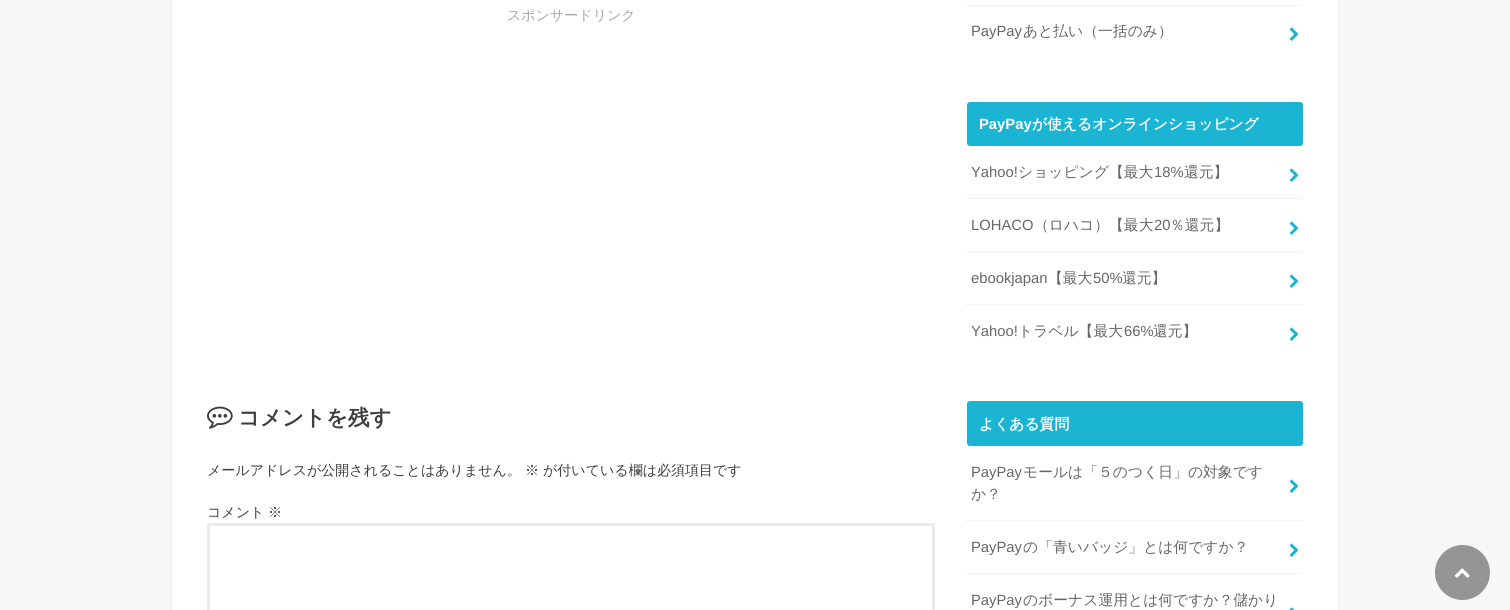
import math
import cairo


def use_color(cr, r, g, b):
  cr.set_source_rgb(r / 255, g / 255, b / 255)

def text(cr, x, y, s, family, size, color, bold=False, italic=False):
  cr.select_font_face(family, cairo.FONT_SLANT_ITALIC if italic else cairo.FONT_SLANT_NORMAL, cairo.FONT_WEIGHT_BOLD if bold else cairo.FONT_WEIGHT_NORMAL)
  cr.set_font_size(size)
  use_color(cr, *color)
  cr.move_to(x, y)
  cr.show_text(s)

def box(cr, x, y, w, h, *color):
  use_color(cr, *color)
  cr.rectangle(x, y, w, h)
  cr.fill()

def round_rect(cr, x, y, w, h, r):
  cr.new_sub_path()
  for i, (u, v) in enumerate([(x + w - r, y + h - r), (x + r, y + h - r), (x + r, y + r), (x + w - r, y + r)]):
    cr.arc(u, v, r, i * math.pi / 2, (i + 1) * math.pi / 2)
  cr.close_path()

def shadow(cr, x, y, w, h, r, blur, alpha):
  cr.push_group_with_content(cairo.CONTENT_ALPHA)
  cr.set_operator(cairo.OPERATOR_SOURCE)
  for i in range(15, -16, -2):
    e = blur * i / 6
    if min(w, h) + 2 * e > 0:
      cr.set_source_rgba(0, 0, 0, alpha * math.erfc((i - 1) / 8.5) / 2)
      round_rect(cr, x - e, y - e, w + 2 * e, h + 2 * e, max(0, min(r + e + blur * .6, min(w, h) / 2 + e)))
      cr.fill()
  cr.mask(cr.pop_group())

def picture(cr, path, x, y, w, h):
  cr.save()
  cr.set_source_surface(cairo.ImageSurface.create_from_png(path), x, y)
  cr.rectangle(x, y, w, h)
  cr.fill()
  cr.restore()

def draw(cr):
  use_color(cr, 247, 247, 247)
  cr.paint()
  use_color(cr, 221, 221, 221)
  shadow(cr, 172, -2, 1166, 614, 0, 0.5, 1)
  box(cr, 172, 0, 1166, 610, 255, 255, 255)
  picture(cr, "img_01.png", 207, 406, 26, 23)
  cr.new_path()
  cr.move_to(208.5, 524.5)
  cr.line_to(933.5, 524.5)
  cr.line_to(933.5, 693.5)
  cr.line_to(208.5, 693.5)
  cr.close_path()
  use_color(cr, 235, 235, 235)
  cr.set_line_width(3)
  cr.stroke()
  cr.new_path()
  cr.move_to(967, 5.5)
  cr.line_to(1303, 5.5)
  use_color(cr, 229, 229, 229)
  cr.set_line_width(1)
  cr.set_dash([1, 1])
  cr.stroke()
  picture(cr, "img_02.png", 1289, 27, 10, 14)
  use_color(cr, 27, 180, 211)
  round_rect(cr, 967, 102, 336, 44, 3)
  cr.fill()
  cr.new_path()
  cr.move_to(967, 198.5)
  cr.line_to(1303, 198.5)
  use_color(cr, 229, 229, 229)
  cr.stroke()
  picture(cr, "img_02.png", 1289, 168, 10, 14)
  cr.new_path()
  cr.move_to(967, 251.5)
  cr.line_to(1303, 251.5)
  cr.stroke()
  picture(cr, "img_02.png", 1289, 221, 10, 14)
  cr.new_path()
  cr.move_to(967, 304.5)
  cr.line_to(1303, 304.5)
  cr.stroke()
  picture(cr, "img_02.png", 1289, 274, 10, 14)
  picture(cr, "img_02.png", 1289, 327, 10, 14)
  use_color(cr, 27, 180, 211)
  round_rect(cr, 967, 401, 336, 45, 3)
  cr.fill()
  cr.new_path()
  cr.move_to(967, 520.5)
  cr.line_to(1303, 520.5)
  use_color(cr, 229, 229, 229)
  cr.stroke()
  picture(cr, "img_02.png", 1289, 479, 10, 14)
  cr.new_path()
  cr.move_to(967, 573.5)
  cr.line_to(1303, 573.5)
  cr.stroke()
  picture(cr, "img_02.png", 1289, 543, 10, 14)
  picture(cr, "img_03.png", 1289, 607, 6, 3)
  use_color(cr, 149, 149, 149)
  cr.arc(1462.5, 572.5, 27.5, 0, 2 * math.pi)
  cr.fill()
  picture(cr, "img_04.png", 1454, 568, 16, 10)
  text(cr, 507, 20, "スポンサードリンク", "WenQuanYi Zen Hei Medium", 14, (166, 166, 166))
  text(cr, 238, 425, "コメントを残す", "WenQuanYi Zen Hei", 21.5, (62, 62, 62), bold=True)
  text(cr, 207, 475, "メールアドレスが公開されることはありません。", "WenQuanYi Zen Hei Medium", 14, (62, 62, 62))
  text(cr, 525, 475, "※", "WenQuanYi Zen Hei Medium", 14, (62, 62, 62))
  text(cr, 543, 475, "が付いている欄は必須項目です", "WenQuanYi Zen Hei Medium", 14, (62, 62, 62))
  text(cr, 207, 517, "コメント", "WenQuanYi Zen Hei Medium", 14, (62, 62, 62))
  text(cr, 268, 517, "※", "WenQuanYi Zen Hei Medium", 14, (62, 62, 62))
  text(cr, 971, 36, "PayPay", "Liberation Sans", 14.8, (102, 102, 102))
  text(cr, 1023, 36, "あと払い（一括のみ）", "WenQuanYi Zen Hei Medium", 14.8, (102, 102, 102))
  text(cr, 979, 129, "PayPay", "Liberation Sans", 14.8, (255, 255, 255), bold=True)
  text(cr, 1032, 129, "が使えるオンラインショッピング", "WenQuanYi Zen Hei", 14.8, (255, 255, 255), bold=True)
  text(cr, 971, 177, "Yahoo!", "Liberation Sans", 14.8, (102, 102, 102))
  text(cr, 1018, 177, "ショッピング【最大", "WenQuanYi Zen Hei Medium", 14.8, (102, 102, 102))
  text(cr, 1154, 177, "18%", "Liberation Sans", 14.8, (102, 102, 102))
  text(cr, 1184, 177, "還元】", "WenQuanYi Zen Hei Medium", 14.8, (102, 102, 102))
  text(cr, 971, 230, "LOHACO", "Liberation Sans", 14.8, (102, 102, 102))
  text(cr, 1034, 230, "（ロハコ）【最大", "WenQuanYi Zen Hei Medium", 14.8, (102, 102, 102))
  text(cr, 1154, 230, "20", "Liberation Sans", 14.8, (102, 102, 102))
  text(cr, 1170, 230, "％還元】", "WenQuanYi Zen Hei Medium", 14.8, (102, 102, 102))
  text(cr, 971, 283, "ebookjapan", "Liberation Sans", 14.8, (102, 102, 102))
  text(cr, 1048, 283, "【最大", "WenQuanYi Zen Hei Medium", 14.8, (102, 102, 102))
  text(cr, 1093, 283, "50%", "Liberation Sans", 14.8, (102, 102, 102))
  text(cr, 1122, 283, "還元】", "WenQuanYi Zen Hei Medium", 14.8, (102, 102, 102))
  text(cr, 971, 336, "Yahoo!", "Liberation Sans", 14.8, (102, 102, 102))
  text(cr, 1018, 336, "トラベル【最大", "WenQuanYi Zen Hei Medium", 14.8, (102, 102, 102))
  text(cr, 1124, 336, "66%", "Liberation Sans", 14.8, (102, 102, 102))
  text(cr, 1153, 336, "還元】", "WenQuanYi Zen Hei Medium", 14.8, (102, 102, 102))
  text(cr, 979, 429, "よくある質問", "WenQuanYi Zen Hei", 14.8, (255, 255, 255), bold=True)
  text(cr, 971, 477, "PayPay", "Liberation Sans", 14.8, (102, 102, 102))
  text(cr, 1023, 477, "モールは「５のつく日」の対象です", "WenQuanYi Zen Hei Medium", 14.8, (102, 102, 102))
  text(cr, 971, 499, "か？", "WenQuanYi Zen Hei Medium", 14.8, (102, 102, 102))
  text(cr, 971, 552, "PayPay", "Liberation Sans", 14.8, (102, 102, 102))
  text(cr, 1023, 552, "の「青いバッジ」とは何ですか？", "WenQuanYi Zen Hei Medium", 14.8, (102, 102, 102))
  text(cr, 971, 605, "PayPay", "Liberation Sans", 14.8, (102, 102, 102))
  text(cr, 1023, 605, "のボーナス運用とは何ですか？儲かり", "WenQuanYi Zen Hei Medium", 14.8, (102, 102, 102))


surface = cairo.ImageSurface(cairo.FORMAT_RGB24, 1510, 610)
cr = cairo.Context(surface)
options = cairo.FontOptions()
options.set_hint_metrics(cairo.HINT_METRICS_OFF)
options.set_hint_style(cairo.HINT_STYLE_NONE)
cr.set_font_options(options)
cr.set_miter_limit(4)
draw(cr)
surface.write_to_png("out.png")
